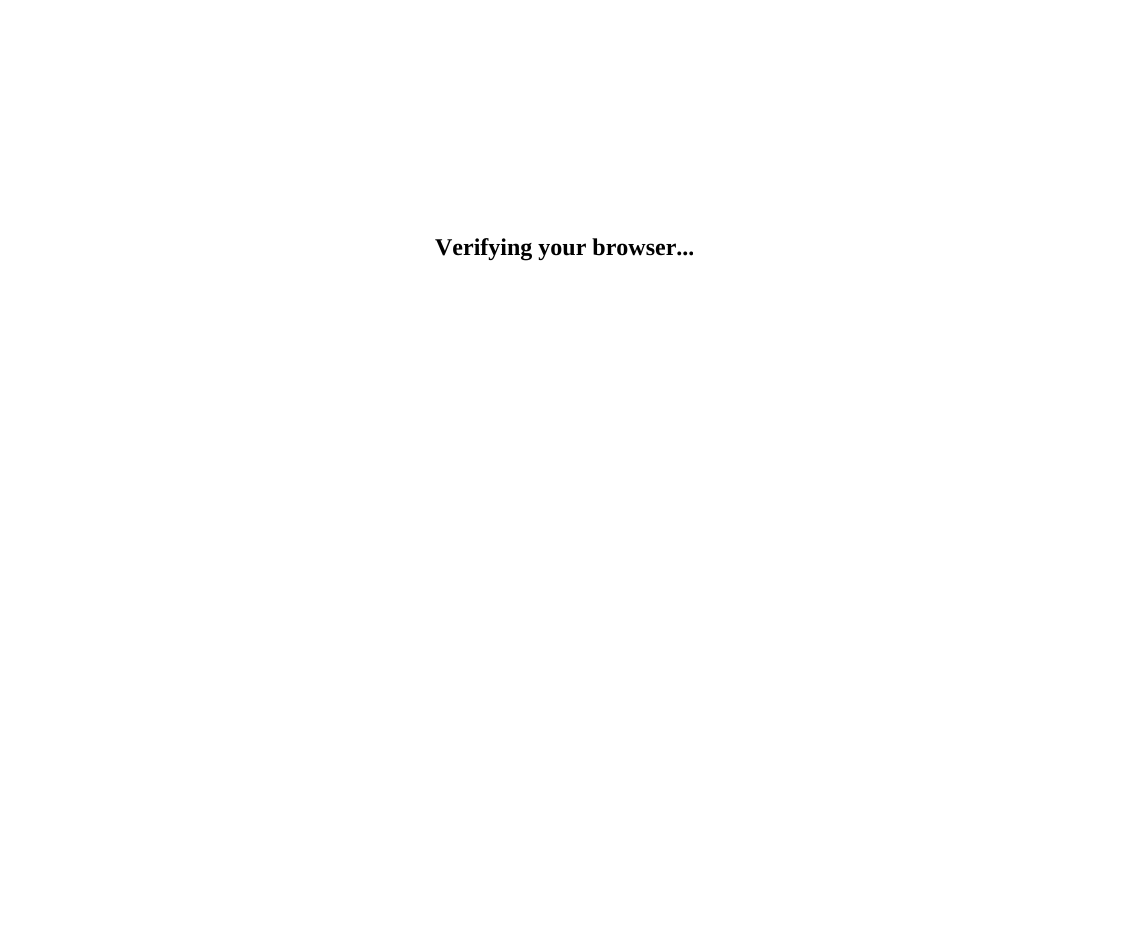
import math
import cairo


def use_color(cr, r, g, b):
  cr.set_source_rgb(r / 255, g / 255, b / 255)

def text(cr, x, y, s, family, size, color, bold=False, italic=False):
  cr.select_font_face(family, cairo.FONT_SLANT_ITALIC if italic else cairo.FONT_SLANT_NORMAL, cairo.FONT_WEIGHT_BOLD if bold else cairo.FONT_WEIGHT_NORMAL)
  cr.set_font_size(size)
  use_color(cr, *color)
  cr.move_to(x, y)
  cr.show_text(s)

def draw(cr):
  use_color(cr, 255, 255, 255)
  cr.paint()
  text(cr, 435, 255, "Verifying your browser...", "Liberation Serif", 24, (0, 0, 0), bold=True)


surface = cairo.ImageSurface(cairo.FORMAT_RGB24, 1130, 940)
cr = cairo.Context(surface)
options = cairo.FontOptions()
options.set_hint_metrics(cairo.HINT_METRICS_OFF)
options.set_hint_style(cairo.HINT_STYLE_NONE)
cr.set_font_options(options)
cr.set_miter_limit(4)
draw(cr)
surface.write_to_png("out.png")
